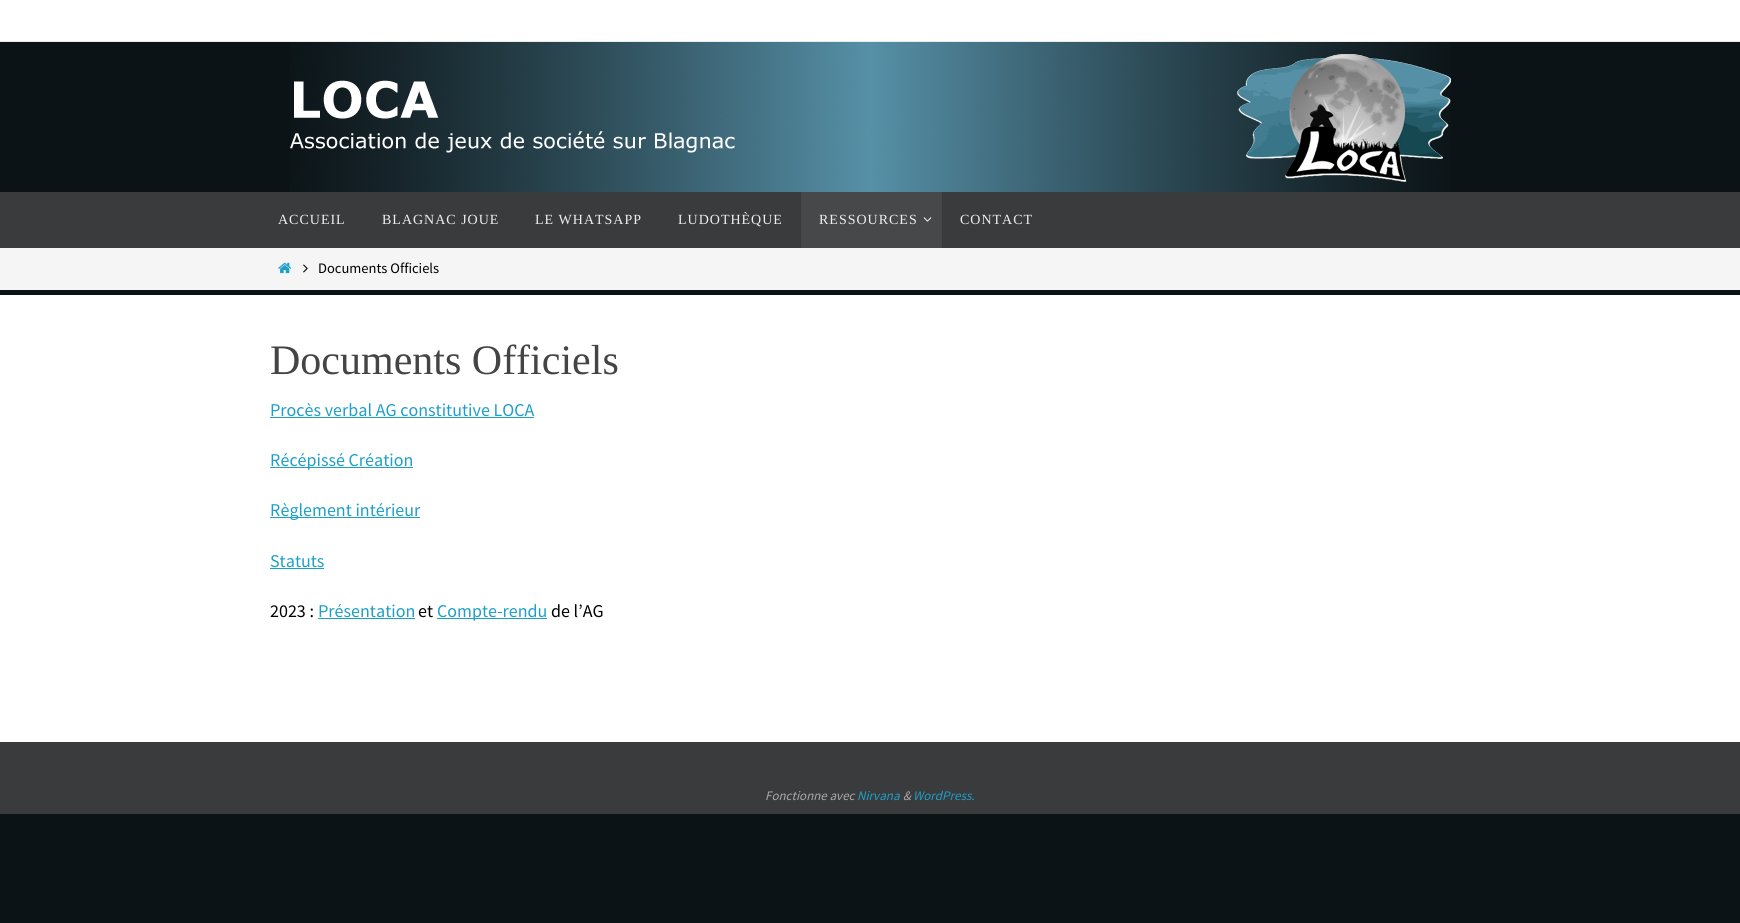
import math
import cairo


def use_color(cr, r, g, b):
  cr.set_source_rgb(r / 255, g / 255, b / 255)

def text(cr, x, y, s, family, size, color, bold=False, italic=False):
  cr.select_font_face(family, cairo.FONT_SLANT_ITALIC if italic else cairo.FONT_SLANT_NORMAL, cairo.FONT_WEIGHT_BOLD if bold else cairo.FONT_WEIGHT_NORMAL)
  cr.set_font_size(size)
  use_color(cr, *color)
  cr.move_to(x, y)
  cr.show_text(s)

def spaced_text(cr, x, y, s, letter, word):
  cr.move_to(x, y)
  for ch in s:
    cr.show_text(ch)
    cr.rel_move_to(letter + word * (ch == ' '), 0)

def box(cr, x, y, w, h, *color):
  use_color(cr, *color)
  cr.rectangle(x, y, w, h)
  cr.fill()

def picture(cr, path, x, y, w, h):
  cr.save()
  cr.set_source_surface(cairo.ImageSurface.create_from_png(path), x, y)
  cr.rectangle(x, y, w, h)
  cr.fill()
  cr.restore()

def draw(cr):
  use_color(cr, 11, 19, 22)
  cr.paint()
  box(cr, 0, 0, 1740, 41, 255, 255, 255)
  box(cr, 0, 41, 1740, 1, 235, 235, 235)
  picture(cr, "img_01.png", 290, 42, 1161, 150)
  box(cr, 0, 192, 1740, 56, 58, 59, 61)
  box(cr, 801, 192, 141, 56, 71, 72, 74)
  picture(cr, "img_02.png", 923, 217, 9, 5)
  box(cr, 0, 248, 1740, 42, 245, 245, 245)
  picture(cr, "img_03.png", 278, 262, 14, 12)
  picture(cr, "img_04.png", 303, 264, 5, 9)
  box(cr, 0, 295, 1740, 447, 255, 255, 255)
  box(cr, 270, 417, 264, 1, 30, 159, 200)
  box(cr, 270, 467, 143, 1, 30, 159, 200)
  box(cr, 270, 517, 150, 1, 30, 159, 200)
  box(cr, 270, 568, 54, 1, 30, 159, 200)
  box(cr, 318, 618, 97, 1, 30, 159, 200)
  box(cr, 437, 618, 110, 1, 30, 159, 200)
  box(cr, 0, 742, 1740, 72, 58, 59, 61)
  cr.select_font_face("Liberation Serif")
  cr.set_font_size(14)
  use_color(cr, 238, 238, 238)
  spaced_text(cr, 278, 224, "ACCUEIL", 1, 0)
  spaced_text(cr, 382, 224, "BLAGNAC JOUE", 1, 0)
  spaced_text(cr, 535, 224, "LE WHATSAPP", 1, 0)
  spaced_text(cr, 678, 224, "LUDOTHÈQUE", 1, 0)
  spaced_text(cr, 819, 224, "RESSOURCES", 1, 0)
  spaced_text(cr, 960, 224, "CONTACT", 1, 0)
  text(cr, 318, 273, "Documents Officiels", "Source Sans Pro", 14.5, (0, 0, 0))
  text(cr, 270, 374, "Documents Officiels", "Liberation Serif", 42, (68, 68, 68))
  text(cr, 270, 416, "Procès verbal AG constitutive LOCA", "Source Sans Pro", 18, (30, 159, 200))
  text(cr, 270, 466, "Récépissé Création", "Source Sans Pro", 18, (30, 159, 200))
  text(cr, 270, 516, "Règlement intérieur", "Source Sans Pro", 18, (30, 159, 200))
  text(cr, 270, 567, "Statuts", "Source Sans Pro", 18, (30, 159, 200))
  text(cr, 270, 617, "2023 :", "Source Sans Pro", 18, (0, 0, 0))
  text(cr, 318, 617, "Présentation", "Source Sans Pro", 18, (30, 159, 200))
  text(cr, 418, 617, "et", "Source Sans Pro", 18, (0, 0, 0))
  text(cr, 437, 617, "Compte-rendu", "Source Sans Pro", 18, (30, 159, 200))
  text(cr, 551, 617, "de l’AG", "Source Sans Pro", 18, (0, 0, 0))
  text(cr, 765, 800, "Fonctionne avec", "Source Sans Pro", 13, (170, 170, 170), italic=True)
  text(cr, 857, 800, "Nirvana", "Source Sans Pro", 13, (30, 159, 200), italic=True)
  text(cr, 903, 800, "&", "Source Sans Pro", 13, (170, 170, 170), italic=True)
  text(cr, 913, 800, "WordPress.", "Source Sans Pro", 13, (30, 159, 200), italic=True)


surface = cairo.ImageSurface(cairo.FORMAT_RGB24, 1740, 923)
cr = cairo.Context(surface)
options = cairo.FontOptions()
options.set_hint_metrics(cairo.HINT_METRICS_OFF)
options.set_hint_style(cairo.HINT_STYLE_NONE)
cr.set_font_options(options)
cr.set_miter_limit(4)
draw(cr)
surface.write_to_png("out.png")
